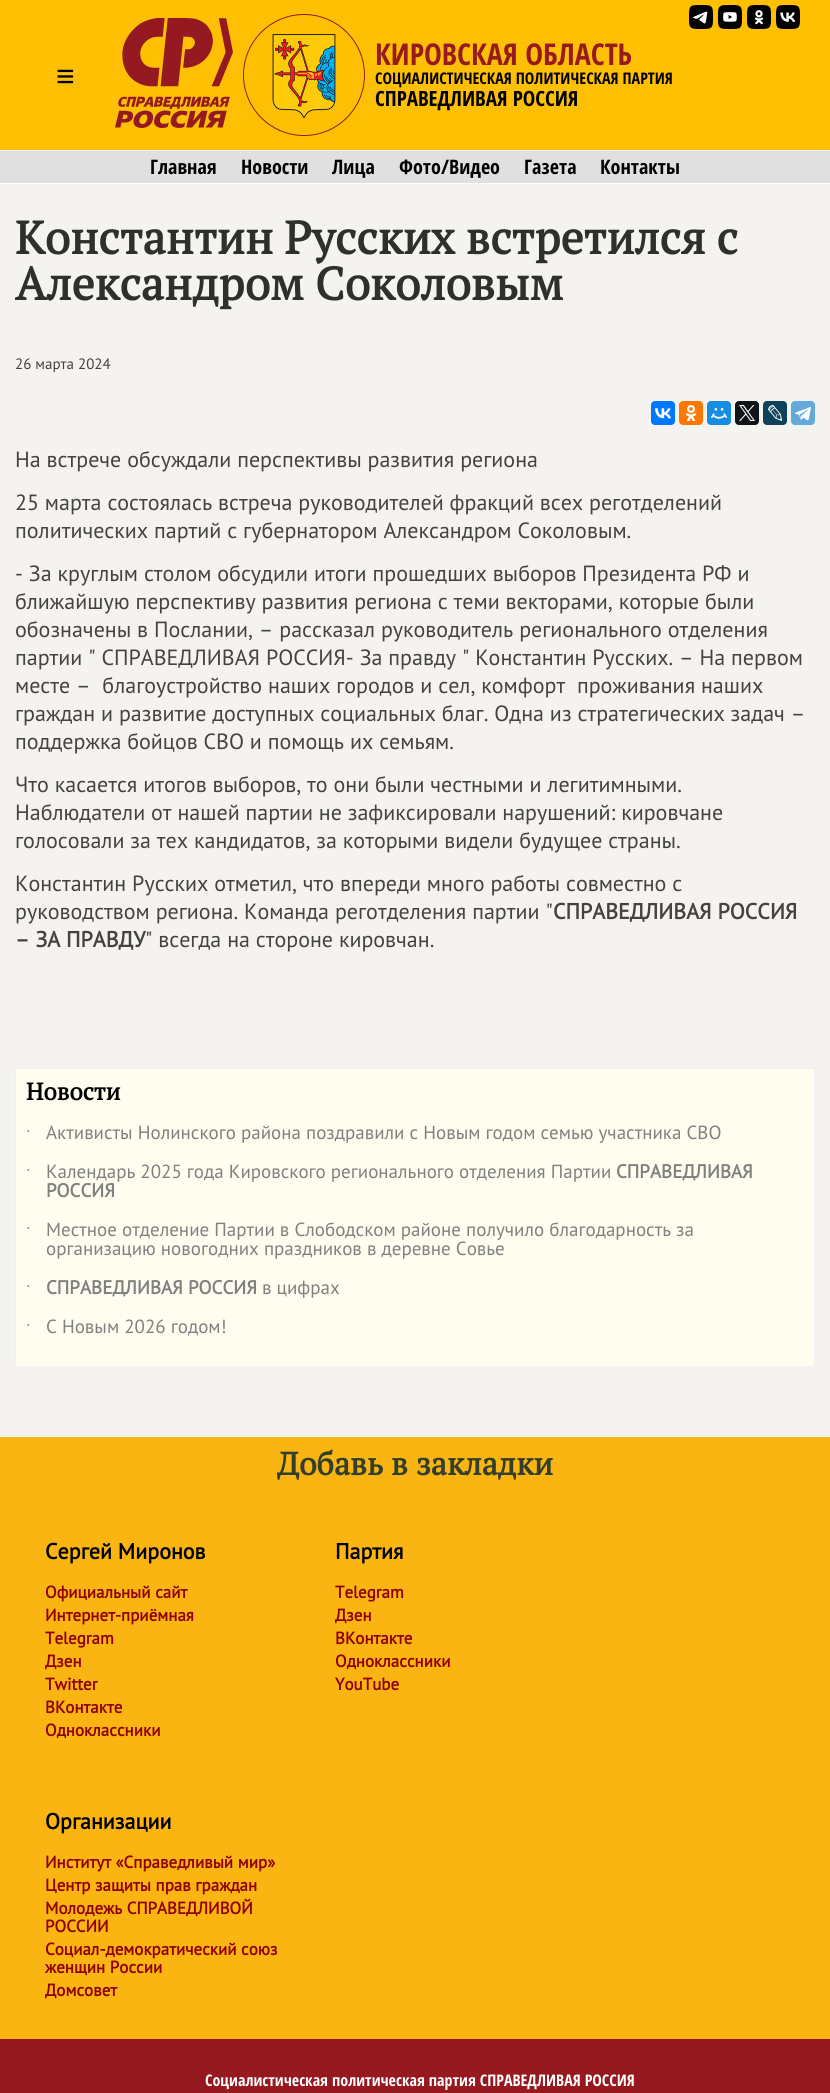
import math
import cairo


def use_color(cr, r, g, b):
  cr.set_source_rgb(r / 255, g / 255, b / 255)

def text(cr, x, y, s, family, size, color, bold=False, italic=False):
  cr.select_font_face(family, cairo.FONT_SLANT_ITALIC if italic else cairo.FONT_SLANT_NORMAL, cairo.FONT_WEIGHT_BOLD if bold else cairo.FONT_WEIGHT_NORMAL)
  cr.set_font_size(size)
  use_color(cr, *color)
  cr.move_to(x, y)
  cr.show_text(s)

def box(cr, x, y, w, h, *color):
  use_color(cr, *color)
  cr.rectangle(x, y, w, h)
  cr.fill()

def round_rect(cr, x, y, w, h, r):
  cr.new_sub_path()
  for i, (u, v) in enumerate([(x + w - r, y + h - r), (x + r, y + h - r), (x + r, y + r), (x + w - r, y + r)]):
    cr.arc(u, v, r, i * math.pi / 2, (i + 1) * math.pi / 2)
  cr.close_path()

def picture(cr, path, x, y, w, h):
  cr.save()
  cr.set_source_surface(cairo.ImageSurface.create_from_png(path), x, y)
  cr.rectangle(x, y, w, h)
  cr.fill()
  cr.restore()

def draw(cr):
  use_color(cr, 244, 243, 239)
  cr.paint()
  box(cr, 0, 0, 830, 150, 255, 192, 3)
  picture(cr, "img_01.png", 689, 5, 24, 24)
  picture(cr, "img_02.png", 718, 5, 24, 24)
  picture(cr, "img_03.png", 747, 5, 24, 24)
  picture(cr, "img_04.png", 776, 5, 24, 24)
  picture(cr, "img_05.png", 115, 18, 118, 110)
  cr.arc(304, 75, 60.5, 0, 2 * math.pi)
  use_color(cr, 148, 26, 31)
  cr.set_line_width(1)
  cr.stroke()
  picture(cr, "img_06.png", 272, 34, 64, 84)
  box(cr, 0, 151, 830, 32, 224, 224, 224)
  box(cr, 0, 150, 830, 1, 255, 255, 255)
  box(cr, 0, 183, 830, 1, 255, 255, 255)
  use_color(cr, 0, 119, 255)
  round_rect(cr, 651, 401, 24, 24, 4)
  cr.fill()
  picture(cr, "img_07.png", 655, 408, 16, 11)
  use_color(cr, 255, 119, 0)
  round_rect(cr, 679, 401, 24, 24, 4)
  cr.fill()
  picture(cr, "img_08.png", 685, 405, 12, 16)
  use_color(cr, 22, 141, 226)
  round_rect(cr, 707, 401, 24, 24, 4)
  cr.fill()
  picture(cr, "img_09.png", 711, 408, 16, 11)
  use_color(cr, 15, 20, 25)
  round_rect(cr, 735, 401, 24, 24, 4)
  cr.fill()
  picture(cr, "img_10.png", 739, 405, 16, 16)
  use_color(cr, 13, 66, 90)
  round_rect(cr, 763, 401, 24, 24, 4)
  cr.fill()
  picture(cr, "img_11.png", 768, 405, 15, 16)
  use_color(cr, 100, 169, 220)
  round_rect(cr, 791, 401, 24, 24, 4)
  cr.fill()
  picture(cr, "img_12.png", 795, 407, 16, 14)
  use_color(cr, 254, 253, 240)
  cr.rectangle(15.5, 1068.5, 799, 298)
  cr.fill_preserve()
  use_color(cr, 240, 240, 240)
  cr.stroke()
  box(cr, 0, 1437, 830, 602, 250, 181, 18)
  box(cr, 0, 2039, 830, 54, 150, 25, 31)
  text(cr, 56, 87, "≡", "Liberation Sans", 32, (0, 0, 0))
  text(cr, 375, 65, "КИРОВСКАЯ ОБЛАСТЬ", "Open Sans Condensed", 30, (151, 27, 30), bold=True)
  text(cr, 375, 84, "СОЦИАЛИСТИЧЕСКАЯ ПОЛИТИЧЕСКАЯ ПАРТИЯ", "Open Sans Condensed", 16, (0, 0, 0), bold=True)
  text(cr, 375, 106, "СПРАВЕДЛИВАЯ РОССИЯ", "Open Sans Condensed", 21, (0, 0, 0), bold=True)
  text(cr, 150, 174, "Главная", "Open Sans Condensed", 20, (0, 0, 0), bold=True)
  text(cr, 241, 174, "Новости", "Open Sans Condensed", 20, (0, 0, 0), bold=True)
  text(cr, 332, 174, "Лица", "Open Sans Condensed", 20, (0, 0, 0), bold=True)
  text(cr, 399, 174, "Фото/Видео", "Open Sans Condensed", 20, (0, 0, 0), bold=True)
  text(cr, 524, 174, "Газета", "Open Sans Condensed", 20, (0, 0, 0), bold=True)
  text(cr, 600, 174, "Контакты", "Open Sans Condensed", 20, (0, 0, 0), bold=True)
  text(cr, 15, 254, "Константин Русских встретился с", "PT Serif", 46, (47, 47, 45), bold=True)
  text(cr, 15, 300, "Александром Соколовым", "PT Serif", 46, (47, 47, 45), bold=True)
  text(cr, 15, 369, "26 марта 2024", "PT Sans", 15, (68, 67, 63))
  text(cr, 15, 467, "На встрече обсуждали перспективы развития региона", "PT Sans", 22, (68, 67, 63))
  text(cr, 15, 510, "25 марта состоялась встреча руководителей фракций всех реготделений", "PT Sans", 22, (68, 67, 63))
  text(cr, 15, 538, "политических партий с губернатором Александром Соколовым.", "PT Sans", 22, (68, 67, 63))
  text(cr, 15, 581, "- За круглым столом обсудили итоги прошедших выборов Президента РФ и", "PT Sans", 22, (68, 67, 63))
  text(cr, 15, 609, "ближайшую перспективу развития региона с теми векторами, которые были", "PT Sans", 22, (68, 67, 63))
  text(cr, 15, 637, "обозначены в Послании, – рассказал руководитель регионального отделения", "PT Sans", 22, (68, 67, 63))
  text(cr, 15, 665, "партии \" СПРАВЕДЛИВАЯ РОССИЯ- За правду \" Константин Русских. – На первом", "PT Sans", 22, (68, 67, 63))
  text(cr, 15, 693, "месте –  благоустройство наших городов и сел, комфорт  проживания наших", "PT Sans", 22, (68, 67, 63))
  text(cr, 15, 721, "граждан и развитие доступных социальных благ. Одна из стратегических задач –", "PT Sans", 22, (68, 67, 63))
  text(cr, 15, 749, "поддержка бойцов СВО и помощь их семьям.", "PT Sans", 22, (68, 67, 63))
  text(cr, 15, 792, "Что касается итогов выборов, то они были честными и легитимными.", "PT Sans", 22, (68, 67, 63))
  text(cr, 15, 820, "Наблюдатели от нашей партии не зафиксировали нарушений: кировчане", "PT Sans", 22, (68, 67, 63))
  text(cr, 15, 848, "голосовали за тех кандидатов, за которыми видели будущее страны.", "PT Sans", 22, (68, 67, 63))
  text(cr, 15, 891, "Константин Русских отметил, что впереди много работы совместно с", "PT Sans", 22, (68, 67, 63))
  text(cr, 15, 919, "руководством региона. Команда реготделения партии \"", "PT Sans", 22, (68, 67, 63))
  text(cr, 553, 919, "СПРАВЕДЛИВАЯ РОССИЯ", "PT Sans", 22, (68, 67, 63), bold=True)
  text(cr, 15, 947, "– ЗА ПРАВДУ", "PT Sans", 22, (68, 67, 63), bold=True)
  text(cr, 145, 947, "\" всегда на стороне кировчан.", "PT Sans", 22, (68, 67, 63))
  text(cr, 26, 1100, "Новости", "PT Serif", 24, (0, 0, 0), bold=True)
  text(cr, 26, 1144, "˙", "Liberation Sans", 19, (128, 128, 128))
  text(cr, 46, 1139, "Активисты Нолинского района поздравили с Новым годом семью участника СВО", "PT Sans", 19, (128, 128, 128))
  text(cr, 26, 1183, "˙", "Liberation Sans", 19, (128, 128, 128))
  text(cr, 46, 1178, "Календарь 2025 года Кировского регионального отделения Партии", "PT Sans", 19, (128, 128, 128))
  text(cr, 616, 1178, "СПРАВЕДЛИВАЯ", "PT Sans", 19, (128, 128, 128), bold=True)
  text(cr, 46, 1197, "РОССИЯ", "PT Sans", 19, (128, 128, 128), bold=True)
  text(cr, 26, 1241, "˙", "Liberation Sans", 19, (128, 128, 128))
  text(cr, 46, 1236, "Местное отделение Партии в Слободском районе получило благодарность за", "PT Sans", 19, (128, 128, 128))
  text(cr, 46, 1255, "организацию новогодних праздников в деревне Совье", "PT Sans", 19, (128, 128, 128))
  text(cr, 26, 1299, "˙", "Liberation Sans", 19, (128, 128, 128))
  text(cr, 46, 1294, "СПРАВЕДЛИВАЯ РОССИЯ", "PT Sans", 19, (128, 128, 128), bold=True)
  text(cr, 262, 1294, "в цифрах", "PT Sans", 19, (128, 128, 128))
  text(cr, 26, 1338, "˙", "Liberation Sans", 19, (128, 128, 128))
  text(cr, 46, 1333, "С Новым 2026 годом!", "PT Sans", 19, (128, 128, 128))
  text(cr, 277, 1475, "Добавь в закладки", "PT Serif", 32, (51, 63, 43), bold=True)
  text(cr, 45, 1559, "Сергей Миронов", "PT Sans", 22, (0, 0, 0), bold=True)
  text(cr, 45, 1598, "Официальный сайт", "PT Sans", 17, (144, 0, 0), bold=True)
  text(cr, 45, 1621, "Интернет-приёмная", "PT Sans", 17, (144, 0, 0), bold=True)
  text(cr, 45, 1644, "Telegram", "PT Sans", 17, (144, 0, 0), bold=True)
  text(cr, 45, 1667, "Дзен", "PT Sans", 17, (144, 0, 0), bold=True)
  text(cr, 45, 1690, "Twitter", "PT Sans", 17, (144, 0, 0), bold=True)
  text(cr, 45, 1713, "ВКонтакте", "PT Sans", 17, (144, 0, 0), bold=True)
  text(cr, 45, 1736, "Одноклассники", "PT Sans", 17, (144, 0, 0), bold=True)
  text(cr, 335, 1559, "Партия", "PT Sans", 22, (0, 0, 0), bold=True)
  text(cr, 335, 1598, "Telegram", "PT Sans", 17, (144, 0, 0), bold=True)
  text(cr, 335, 1621, "Дзен", "PT Sans", 17, (144, 0, 0), bold=True)
  text(cr, 335, 1644, "ВКонтакте", "PT Sans", 17, (144, 0, 0), bold=True)
  text(cr, 335, 1667, "Одноклассники", "PT Sans", 17, (144, 0, 0), bold=True)
  text(cr, 335, 1690, "YouTube", "PT Sans", 17, (144, 0, 0), bold=True)
  text(cr, 45, 1829, "Организации", "PT Sans", 22, (0, 0, 0), bold=True)
  text(cr, 45, 1868, "Институт «Справедливый мир»", "PT Sans", 17, (144, 0, 0), bold=True)
  text(cr, 45, 1891, "Центр защиты прав граждан", "PT Sans", 17, (144, 0, 0), bold=True)
  text(cr, 45, 1914, "Молодежь СПРАВЕДЛИВОЙ", "PT Sans", 17, (144, 0, 0), bold=True)
  text(cr, 45, 1932, "РОССИИ", "PT Sans", 17, (144, 0, 0), bold=True)
  text(cr, 45, 1955, "Социал-демократический союз", "PT Sans", 17, (144, 0, 0), bold=True)
  text(cr, 45, 1973, "женщин России", "PT Sans", 17, (144, 0, 0), bold=True)
  text(cr, 45, 1996, "Домсовет", "PT Sans", 17, (144, 0, 0), bold=True)
  text(cr, 205, 2086, "Социалистическая политическая партия СПРАВЕДЛИВАЯ РОССИЯ", "Open Sans Condensed", 16, (255, 255, 255), bold=True)


surface = cairo.ImageSurface(cairo.FORMAT_RGB24, 830, 2093)
cr = cairo.Context(surface)
options = cairo.FontOptions()
options.set_hint_metrics(cairo.HINT_METRICS_OFF)
options.set_hint_style(cairo.HINT_STYLE_NONE)
cr.set_font_options(options)
cr.set_miter_limit(4)
draw(cr)
surface.write_to_png("out.png")
